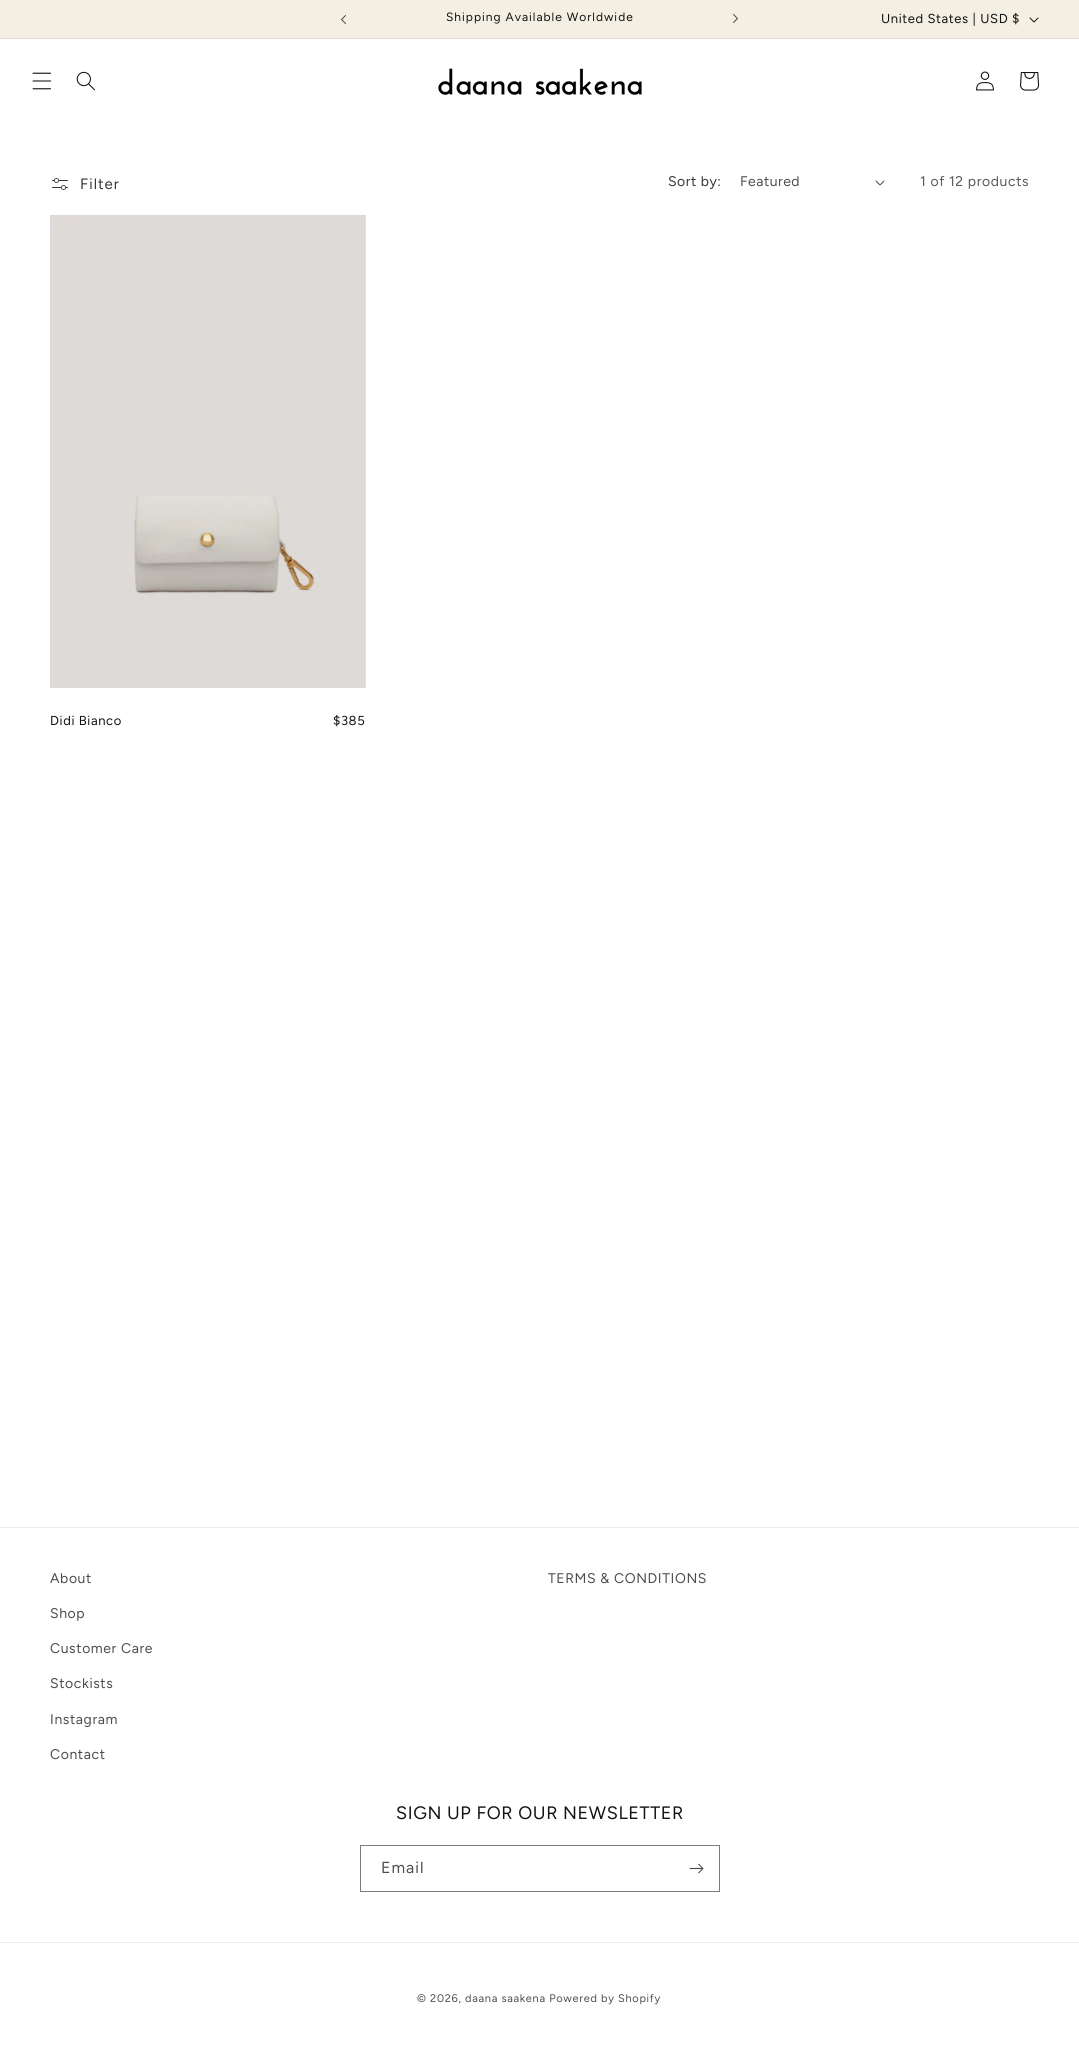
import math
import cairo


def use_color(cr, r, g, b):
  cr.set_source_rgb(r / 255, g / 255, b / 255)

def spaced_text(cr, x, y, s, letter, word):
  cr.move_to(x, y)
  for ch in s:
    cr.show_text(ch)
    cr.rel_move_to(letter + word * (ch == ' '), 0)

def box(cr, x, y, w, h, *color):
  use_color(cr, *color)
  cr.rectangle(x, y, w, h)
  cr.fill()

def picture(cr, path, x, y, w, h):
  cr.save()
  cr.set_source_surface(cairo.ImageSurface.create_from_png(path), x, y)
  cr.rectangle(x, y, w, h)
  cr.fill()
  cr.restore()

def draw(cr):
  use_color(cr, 255, 255, 255)
  cr.paint()
  box(cr, 0, 0, 1079, 38, 243, 239, 227)
  box(cr, 0, 38, 1079, 1, 225, 221, 210)
  picture(cr, "img_01.png", 341, 15, 5, 9)
  picture(cr, "img_02.png", 733, 14, 5, 9)
  picture(cr, "img_03.png", 1029, 17, 10, 6)
  picture(cr, "img_04.png", 32, 72, 20, 18)
  picture(cr, "img_05.png", 76, 71, 19, 20)
  picture(cr, "img_06.png", 438, 68, 204, 27)
  picture(cr, "img_07.png", 976, 71, 18, 20)
  picture(cr, "img_08.png", 1020, 72, 20, 19)
  picture(cr, "img_09.png", 52, 178, 16, 12)
  picture(cr, "img_10.png", 875, 180, 10, 6)
  picture(cr, "img_11.png", 50, 215, 316, 473)
  box(cr, 0, 1527, 1079, 1, 236, 236, 236)
  cr.rectangle(360.5, 1845.5, 359, 46)
  use_color(cr, 125, 125, 125)
  cr.set_line_width(1)
  cr.stroke()
  picture(cr, "img_12.png", 689, 1863, 15, 11)
  box(cr, 0, 1942, 1079, 1, 236, 236, 236)
  cr.select_font_face("Figtree")
  cr.set_font_size(12)
  use_color(cr, 18, 18, 18)
  spaced_text(cr, 446, 21, "Shipping Available Worldwide", 1, 0)
  cr.set_font_size(13)
  spaced_text(cr, 881, 23, "United States | USD $", 0.6, 0)
  cr.set_font_size(15)
  use_color(cr, 54, 54, 54)
  spaced_text(cr, 80, 189, "Filter", 1, 0)
  cr.set_font_size(14)
  spaced_text(cr, 668, 186, "Sort by:", 0.5, 0)
  use_color(cr, 77, 77, 77)
  spaced_text(cr, 740, 186, "Featured", 0.5, 0)
  use_color(cr, 89, 89, 89)
  spaced_text(cr, 920, 186, "1 of 12 products", 0.6, 0)
  cr.set_font_size(13)
  use_color(cr, 18, 18, 18)
  spaced_text(cr, 50, 725, "Didi Bianco", 0.6, 0)
  spaced_text(cr, 333, 725, "$385", 0.6, 0)
  cr.set_font_size(14)
  use_color(cr, 77, 77, 77)
  spaced_text(cr, 50, 1583, "About", 0.6, 0)
  spaced_text(cr, 50, 1618, "Shop", 0.6, 0)
  spaced_text(cr, 50, 1653, "Customer Care", 0.6, 0)
  spaced_text(cr, 50, 1688, "Stockists", 0.6, 0)
  spaced_text(cr, 50, 1724, "Instagram", 0.6, 0)
  spaced_text(cr, 50, 1759, "Contact", 0.6, 0)
  spaced_text(cr, 548, 1583, "TERMS & CONDITIONS", 0.6, 0)
  cr.set_font_size(18)
  use_color(cr, 18, 18, 18)
  spaced_text(cr, 396, 1819, "SIGN UP FOR OUR NEWSLETTER", 0.6, 0)
  cr.set_font_size(16)
  use_color(cr, 77, 77, 77)
  spaced_text(cr, 381, 1873, "Email", 1, 0)
  cr.set_font_size(11)
  spaced_text(cr, 417, 2002, "© 2026, daana saakena Powered by Shopify", 0.7, 0)


surface = cairo.ImageSurface(cairo.FORMAT_RGB24, 1079, 2045)
cr = cairo.Context(surface)
options = cairo.FontOptions()
options.set_hint_metrics(cairo.HINT_METRICS_OFF)
options.set_hint_style(cairo.HINT_STYLE_NONE)
cr.set_font_options(options)
cr.set_miter_limit(4)
draw(cr)
surface.write_to_png("out.png")
